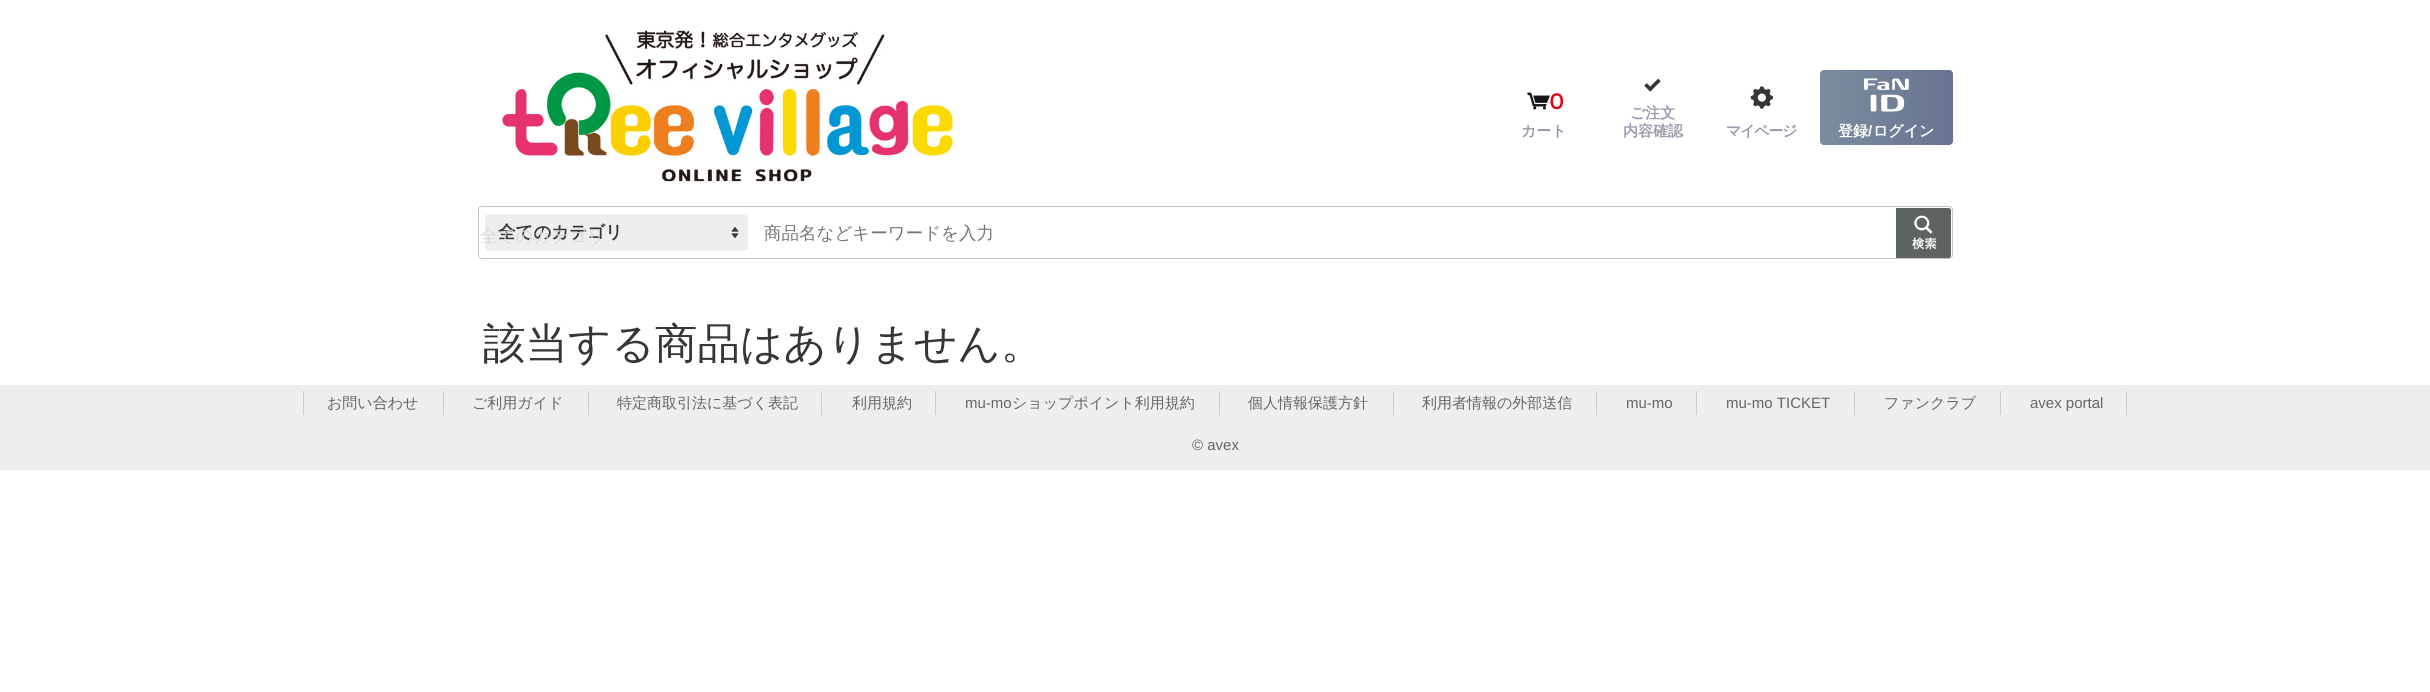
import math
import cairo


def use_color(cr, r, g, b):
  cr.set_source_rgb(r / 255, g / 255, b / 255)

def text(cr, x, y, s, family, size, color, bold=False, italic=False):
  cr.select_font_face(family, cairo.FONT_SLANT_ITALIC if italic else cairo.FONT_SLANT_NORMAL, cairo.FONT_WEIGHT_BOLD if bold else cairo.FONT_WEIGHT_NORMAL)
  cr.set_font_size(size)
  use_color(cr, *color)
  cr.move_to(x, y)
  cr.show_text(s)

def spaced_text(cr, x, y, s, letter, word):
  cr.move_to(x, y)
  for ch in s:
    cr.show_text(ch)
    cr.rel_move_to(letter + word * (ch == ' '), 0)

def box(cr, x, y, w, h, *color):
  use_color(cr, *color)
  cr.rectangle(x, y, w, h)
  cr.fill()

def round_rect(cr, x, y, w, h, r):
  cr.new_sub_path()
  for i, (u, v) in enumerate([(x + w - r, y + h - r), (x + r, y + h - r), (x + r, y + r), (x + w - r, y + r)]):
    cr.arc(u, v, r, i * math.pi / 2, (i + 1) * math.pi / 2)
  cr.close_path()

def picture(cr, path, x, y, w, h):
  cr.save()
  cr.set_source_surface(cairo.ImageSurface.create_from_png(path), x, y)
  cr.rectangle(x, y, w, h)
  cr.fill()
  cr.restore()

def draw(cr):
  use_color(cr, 255, 255, 255)
  cr.paint()
  picture(cr, "img_01.png", 502, 30, 451, 152)
  picture(cr, "img_02.png", 1527, 92, 23, 18)
  picture(cr, "img_03.png", 1644, 78, 17, 14)
  picture(cr, "img_04.png", 1750, 86, 23, 23)
  gradient = cairo.LinearGradient(1820, 108, 1953, 108)
  gradient.add_color_stop_rgba(0, 0.478, 0.553, 0.627, 1)
  gradient.add_color_stop_rgba(1, 0.412, 0.451, 0.569, 1)
  cr.set_source(gradient)
  round_rect(cr, 1820, 70, 133, 75, 4)
  cr.fill()
  picture(cr, "img_05.png", 1864, 78, 45, 34)
  round_rect(cr, 478.5, 206.5, 1474, 52, 3.5)
  use_color(cr, 197, 197, 197)
  cr.set_line_width(1)
  cr.stroke()
  use_color(cr, 238, 238, 238)
  round_rect(cr, 485, 214, 263, 37, 4)
  cr.fill()
  picture(cr, "img_06.png", 731, 227, 8, 11)
  use_color(cr, 255, 255, 255)
  cr.new_path()
  cr.move_to(751, 208)
  cr.line_to(1948.5, 208)
  cr.curve_to(1950, 208, 1951, 209, 1951, 210.5)
  cr.line_to(1951, 255.5)
  cr.curve_to(1951, 257, 1950, 258, 1948.5, 258)
  cr.line_to(751, 258)
  cr.close_path()
  cr.fill()
  use_color(cr, 93, 98, 98)
  cr.new_path()
  cr.move_to(1896, 208)
  cr.line_to(1948.5, 208)
  cr.curve_to(1950, 208, 1951, 209, 1951, 210.5)
  cr.line_to(1951, 255.5)
  cr.curve_to(1951, 257, 1950, 258, 1948.5, 258)
  cr.line_to(1896, 258)
  cr.close_path()
  cr.fill()
  picture(cr, "img_07.png", 1912, 215, 25, 35)
  box(cr, 0, 385, 2430, 85, 238, 238, 238)
  box(cr, 443, 391, 1, 24, 204, 204, 204)
  box(cr, 303, 391, 1, 24, 204, 204, 204)
  box(cr, 588, 391, 1, 24, 204, 204, 204)
  box(cr, 821, 391, 1, 24, 204, 204, 204)
  box(cr, 935, 391, 1, 24, 204, 204, 204)
  box(cr, 1219, 391, 1, 24, 204, 204, 204)
  box(cr, 1393, 391, 1, 24, 204, 204, 204)
  box(cr, 1596, 391, 1, 24, 204, 204, 204)
  box(cr, 1696, 391, 1, 24, 204, 204, 204)
  box(cr, 1854, 391, 1, 24, 204, 204, 204)
  box(cr, 2000, 391, 1, 24, 204, 204, 204)
  box(cr, 2126, 391, 1, 24, 204, 204, 204)
  cr.select_font_face("Montserrat")
  cr.set_font_size(22)
  use_color(cr, 230, 0, 18)
  spaced_text(cr, 1550, 109, "0", -1.25, 0)
  text(cr, 1521, 136, "カート", "WenQuanYi Zen Hei", 15, (154, 153, 173), bold=True)
  text(cr, 1630, 118, "ご注文", "WenQuanYi Zen Hei", 15, (154, 153, 173), bold=True)
  text(cr, 1623, 136, "内容確認", "WenQuanYi Zen Hei", 15, (154, 153, 173), bold=True)
  spaced_text(cr, 1726, 136, "マイページ", -1.25, 0)
  text(cr, 1838, 136, "登録", "WenQuanYi Zen Hei", 15, (255, 255, 255), bold=True)
  text(cr, 1868, 136, "/", "Liberation Sans", 15, (255, 255, 255), bold=True)
  text(cr, 1873, 136, "ログイン", "WenQuanYi Zen Hei", 15, (255, 255, 255), bold=True)
  text(cr, 498, 238, "全てのカテゴリ", "WenQuanYi Zen Hei", 17.5, (52, 55, 57), bold=True)
  text(cr, 480, 242, "全てのカテゴリ", "WenQuanYi Zen Hei Medium", 17.5, (217, 217, 218))
  text(cr, 764, 239, "商品名などキーワードを入力", "WenQuanYi Zen Hei Medium", 17.5, (117, 117, 117))
  text(cr, 483, 358, "該当する商品はありません。", "WenQuanYi Zen Hei Medium", 42.5, (52, 55, 57))
  text(cr, 327, 408, "お問い合わせ", "WenQuanYi Zen Hei Medium", 15, (102, 102, 102))
  text(cr, 472, 408, "ご利用ガイド", "WenQuanYi Zen Hei Medium", 15, (102, 102, 102))
  text(cr, 617, 408, "特定商取引法に基づく表記", "WenQuanYi Zen Hei Medium", 15, (102, 102, 102))
  text(cr, 852, 408, "利用規約", "WenQuanYi Zen Hei Medium", 15, (102, 102, 102))
  text(cr, 965, 408, "mu-mo", "Liberation Sans", 15, (102, 102, 102))
  text(cr, 1012, 408, "ショップポイント利用規約", "WenQuanYi Zen Hei Medium", 15, (102, 102, 102))
  text(cr, 1248, 408, "個人情報保護方針", "WenQuanYi Zen Hei Medium", 15, (102, 102, 102))
  text(cr, 1422, 408, "利用者情報の外部送信", "WenQuanYi Zen Hei Medium", 15, (102, 102, 102))
  text(cr, 1626, 408, "mu-mo", "Liberation Sans", 15, (102, 102, 102))
  text(cr, 1726, 408, "mu-mo TICKET", "Liberation Sans", 15, (102, 102, 102))
  text(cr, 1884, 408, "ファンクラブ", "WenQuanYi Zen Hei Medium", 15, (102, 102, 102))
  text(cr, 2030, 408, "avex portal", "Liberation Sans", 15, (102, 102, 102))
  text(cr, 1192, 450, "© avex", "Liberation Sans", 15, (102, 102, 102))


surface = cairo.ImageSurface(cairo.FORMAT_RGB24, 2430, 692)
cr = cairo.Context(surface)
options = cairo.FontOptions()
options.set_hint_metrics(cairo.HINT_METRICS_OFF)
options.set_hint_style(cairo.HINT_STYLE_NONE)
cr.set_font_options(options)
cr.set_miter_limit(4)
draw(cr)
surface.write_to_png("out.png")
